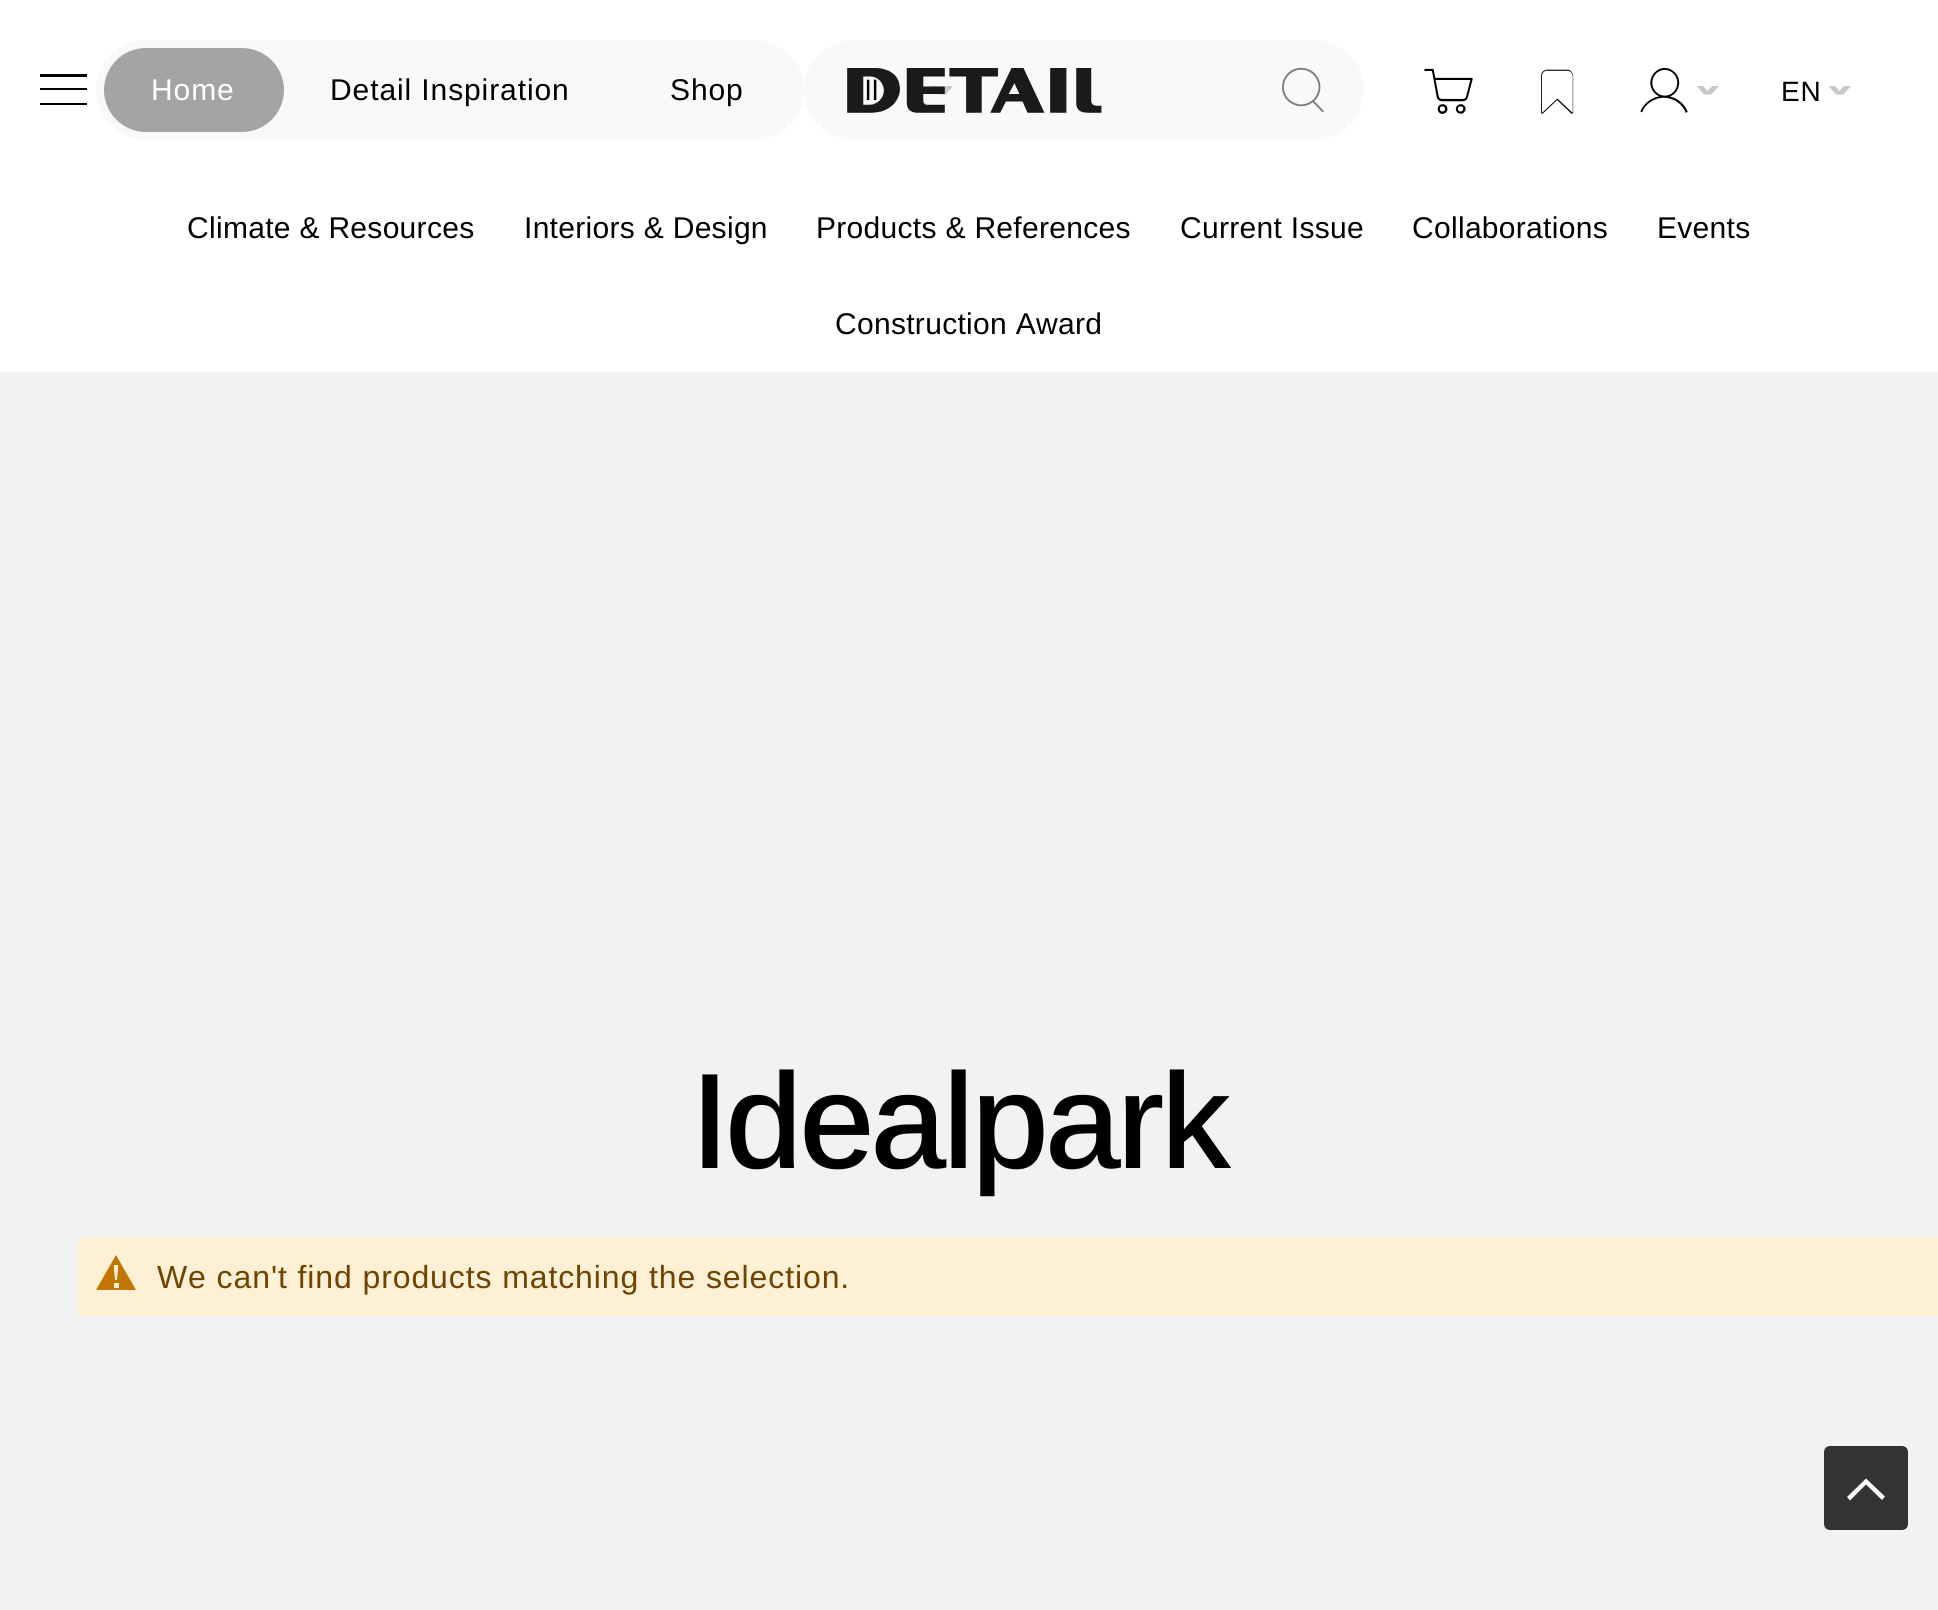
import math
import cairo


def use_color(cr, r, g, b):
  cr.set_source_rgb(r / 255, g / 255, b / 255)

def spaced_text(cr, x, y, s, letter, word):
  cr.move_to(x, y)
  for ch in s:
    cr.show_text(ch)
    cr.rel_move_to(letter + word * (ch == ' '), 0)

def box(cr, x, y, w, h, *color):
  use_color(cr, *color)
  cr.rectangle(x, y, w, h)
  cr.fill()

def round_rect(cr, x, y, w, h, r):
  cr.new_sub_path()
  for i, (u, v) in enumerate([(x + w - r, y + h - r), (x + r, y + h - r), (x + r, y + r), (x + w - r, y + r)]):
    cr.arc(u, v, r, i * math.pi / 2, (i + 1) * math.pi / 2)
  cr.close_path()

def picture(cr, path, x, y, w, h):
  cr.save()
  cr.set_source_surface(cairo.ImageSurface.create_from_png(path), x, y)
  cr.rectangle(x, y, w, h)
  cr.fill()
  cr.restore()

def draw(cr):
  use_color(cr, 242, 242, 242)
  cr.paint()
  box(cr, 0, 0, 1938, 372, 255, 255, 255)
  use_color(cr, 0, 0, 0)
  cr.new_path()
  cr.move_to(40, 74)
  cr.line_to(87, 74)
  cr.line_to(87, 77)
  cr.line_to(40, 77)
  cr.close_path()
  cr.move_to(40, 88)
  cr.line_to(87, 88)
  cr.line_to(87, 90)
  cr.line_to(40, 90)
  cr.close_path()
  cr.move_to(40, 103)
  cr.line_to(87, 103)
  cr.line_to(87, 105)
  cr.line_to(40, 105)
  cr.close_path()
  cr.fill()
  use_color(cr, 249, 249, 249)
  round_rect(cr, 96, 40, 708, 100, 50)
  cr.fill()
  use_color(cr, 164, 164, 164)
  round_rect(cr, 104, 48, 180, 84, 42)
  cr.fill()
  picture(cr, "img_02.png", 1424, 68, 49, 46)
  picture(cr, "img_03.png", 1541, 69, 33, 45)
  picture(cr, "img_04.png", 1640, 68, 48, 45)
  use_color(cr, 200, 200, 200)
  cr.new_path()
  cr.move_to(1696.5, 86)
  cr.line_to(1704, 94.5)
  cr.line_to(1711.5, 94.5)
  cr.line_to(1719, 86)
  cr.line_to(1712, 86)
  cr.line_to(1707.5, 91)
  cr.line_to(1703, 86)
  cr.close_path()
  cr.fill()
  use_color(cr, 249, 249, 249)
  round_rect(cr, 804, 40, 560, 100, 50)
  cr.fill()
  use_color(cr, 200, 200, 200)
  cr.new_path()
  cr.move_to(930.5, 86)
  cr.line_to(938, 94.5)
  cr.line_to(945.5, 94.5)
  cr.line_to(953, 86)
  cr.line_to(946, 86)
  cr.line_to(941.5, 91)
  cr.line_to(937, 86)
  cr.close_path()
  cr.fill()
  picture(cr, "img_05.png", 1282, 67, 42, 46)
  cr.new_path()
  cr.move_to(1828.5, 86)
  cr.line_to(1836, 94.5)
  cr.line_to(1843.5, 94.5)
  cr.line_to(1851, 86)
  cr.line_to(1844, 86)
  cr.line_to(1839.5, 91)
  cr.line_to(1835, 86)
  cr.close_path()
  cr.fill()
  box(cr, 78, 1238, 1860, 78, 253, 240, 213)
  use_color(cr, 192, 118, 0)
  cr.new_path()
  cr.move_to(116, 1255)
  cr.line_to(96, 1290)
  cr.line_to(136, 1290)
  cr.close_path()
  cr.move_to(118, 1265)
  cr.line_to(118, 1270)
  cr.line_to(117, 1280)
  cr.line_to(115, 1280)
  cr.line_to(114, 1270)
  cr.line_to(114, 1265)
  cr.close_path()
  cr.move_to(114, 1288)
  cr.line_to(114, 1283)
  cr.line_to(119, 1283)
  cr.line_to(119, 1288)
  cr.close_path()
  cr.fill()
  use_color(cr, 51, 51, 51)
  round_rect(cr, 1825, 1447, 82, 82, 5)
  cr.fill_preserve()
  cr.stroke()
  use_color(cr, 255, 255, 255)
  cr.new_path()
  cr.move_to(1866, 1484.5)
  cr.line_to(1882, 1500)
  cr.line_to(1885, 1496.5)
  cr.line_to(1866, 1478.5)
  cr.line_to(1847, 1497)
  cr.line_to(1850, 1500.5)
  cr.close_path()
  cr.fill()
  cr.select_font_face("Arimo")
  cr.set_font_size(30)
  spaced_text(cr, 151, 100, "Home", 0.9, 0)
  use_color(cr, 0, 0, 0)
  spaced_text(cr, 330, 100, "Detail Inspiration", 0.9, 0)
  spaced_text(cr, 670, 100, "Shop", 0.9, 0)
  cr.set_font_size(28)
  spaced_text(cr, 865, 100, "ll", 0.9, 0)
  picture(cr, "img_01.png", 847, 68, 255, 45)
  spaced_text(cr, 1781, 101, "EN", 0.9, 0)
  cr.set_font_size(30)
  spaced_text(cr, 187, 238, "Climate & Resources", 0.3, 0)
  spaced_text(cr, 524, 238, "Interiors & Design", 0.3, 0)
  spaced_text(cr, 816, 238, "Products & References", 0.3, 0)
  spaced_text(cr, 1180, 238, "Current Issue", 0.3, 0)
  spaced_text(cr, 1412, 238, "Collaborations", 0.3, 0)
  spaced_text(cr, 1657, 238, "Events", 0.3, 0)
  spaced_text(cr, 835, 334, "Construction Award", 0.3, 0)
  cr.select_font_face("Arimo Medium")
  cr.set_font_size(136)
  spaced_text(cr, 691, 1168, "Idealpark", -4, 0)
  cr.select_font_face("Arimo")
  cr.set_font_size(32)
  use_color(cr, 111, 68, 0)
  spaced_text(cr, 157, 1288, "We can't find products matching the selection.", 0.9, 0)


surface = cairo.ImageSurface(cairo.FORMAT_RGB24, 1938, 1610)
cr = cairo.Context(surface)
options = cairo.FontOptions()
options.set_hint_metrics(cairo.HINT_METRICS_OFF)
options.set_hint_style(cairo.HINT_STYLE_NONE)
cr.set_font_options(options)
cr.set_miter_limit(4)
draw(cr)
surface.write_to_png("out.png")
